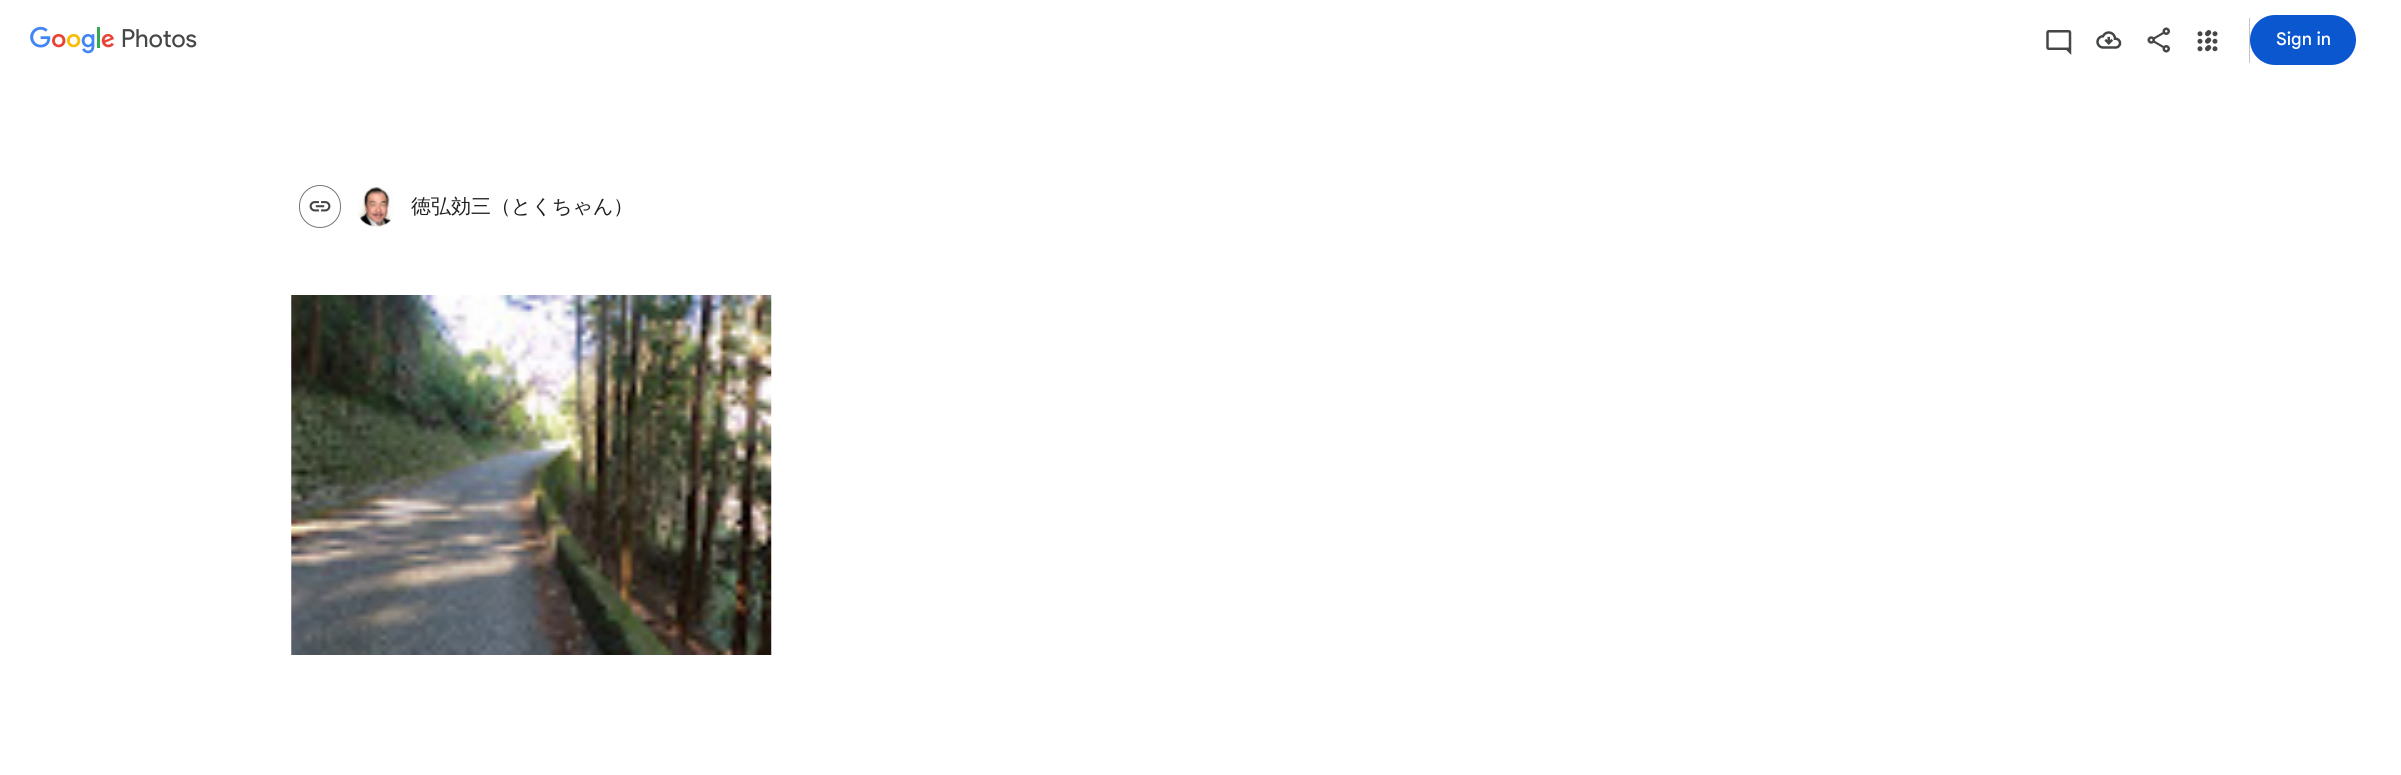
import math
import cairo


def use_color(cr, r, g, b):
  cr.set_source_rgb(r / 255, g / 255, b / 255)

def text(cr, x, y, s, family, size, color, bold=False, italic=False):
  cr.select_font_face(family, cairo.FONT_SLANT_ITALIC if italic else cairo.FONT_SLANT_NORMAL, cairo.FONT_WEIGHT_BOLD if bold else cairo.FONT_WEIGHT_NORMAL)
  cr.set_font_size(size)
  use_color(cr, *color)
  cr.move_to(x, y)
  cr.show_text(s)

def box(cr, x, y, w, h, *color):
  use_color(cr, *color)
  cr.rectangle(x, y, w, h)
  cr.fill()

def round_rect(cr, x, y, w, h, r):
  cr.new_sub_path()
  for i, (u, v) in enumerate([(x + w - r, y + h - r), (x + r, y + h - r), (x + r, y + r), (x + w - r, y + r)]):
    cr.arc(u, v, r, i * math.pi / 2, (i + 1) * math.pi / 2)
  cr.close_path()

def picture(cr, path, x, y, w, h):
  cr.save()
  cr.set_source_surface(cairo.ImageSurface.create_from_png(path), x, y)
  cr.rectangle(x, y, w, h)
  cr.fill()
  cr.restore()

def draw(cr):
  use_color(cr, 255, 255, 255)
  cr.paint()
  picture(cr, "img_01.png", 30, 26, 84, 28)
  picture(cr, "img_02.png", 2046, 30, 26, 25)
  picture(cr, "img_03.png", 2096, 31, 26, 18)
  picture(cr, "img_04.png", 2147, 27, 23, 26)
  picture(cr, "img_05.png", 2206, 30, 6, 20)
  box(cr, 2249, 18, 1, 45, 196, 199, 197)
  round_rect(cr, 299.5, 185.5, 41, 42, 20.5)
  use_color(cr, 116, 119, 117)
  cr.set_line_width(1)
  cr.stroke()
  picture(cr, "img_06.png", 309, 201, 22, 11)
  picture(cr, "img_07.png", 357, 186, 37, 41)
  picture(cr, "img_08.png", 291, 295, 481, 360)
  picture(cr, "img_09.png", 2197, 31, 21, 21)
  use_color(cr, 11, 87, 208)
  round_rect(cr, 2250, 15, 106, 50, 25)
  cr.fill()
  text(cr, 121, 47, "Photos", "Product Sans", 25, (68, 71, 70))
  text(cr, 411, 213, "徳弘効三（とくちゃん）", "WenQuanYi Zen Hei Medium", 20, (31, 31, 31))
  text(cr, 2276, 45, "Sign in", "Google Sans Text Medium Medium", 17.5, (255, 255, 255))


surface = cairo.ImageSurface(cairo.FORMAT_RGB24, 2401, 775)
cr = cairo.Context(surface)
options = cairo.FontOptions()
options.set_hint_metrics(cairo.HINT_METRICS_OFF)
options.set_hint_style(cairo.HINT_STYLE_NONE)
cr.set_font_options(options)
cr.set_miter_limit(4)
draw(cr)
surface.write_to_png("out.png")
